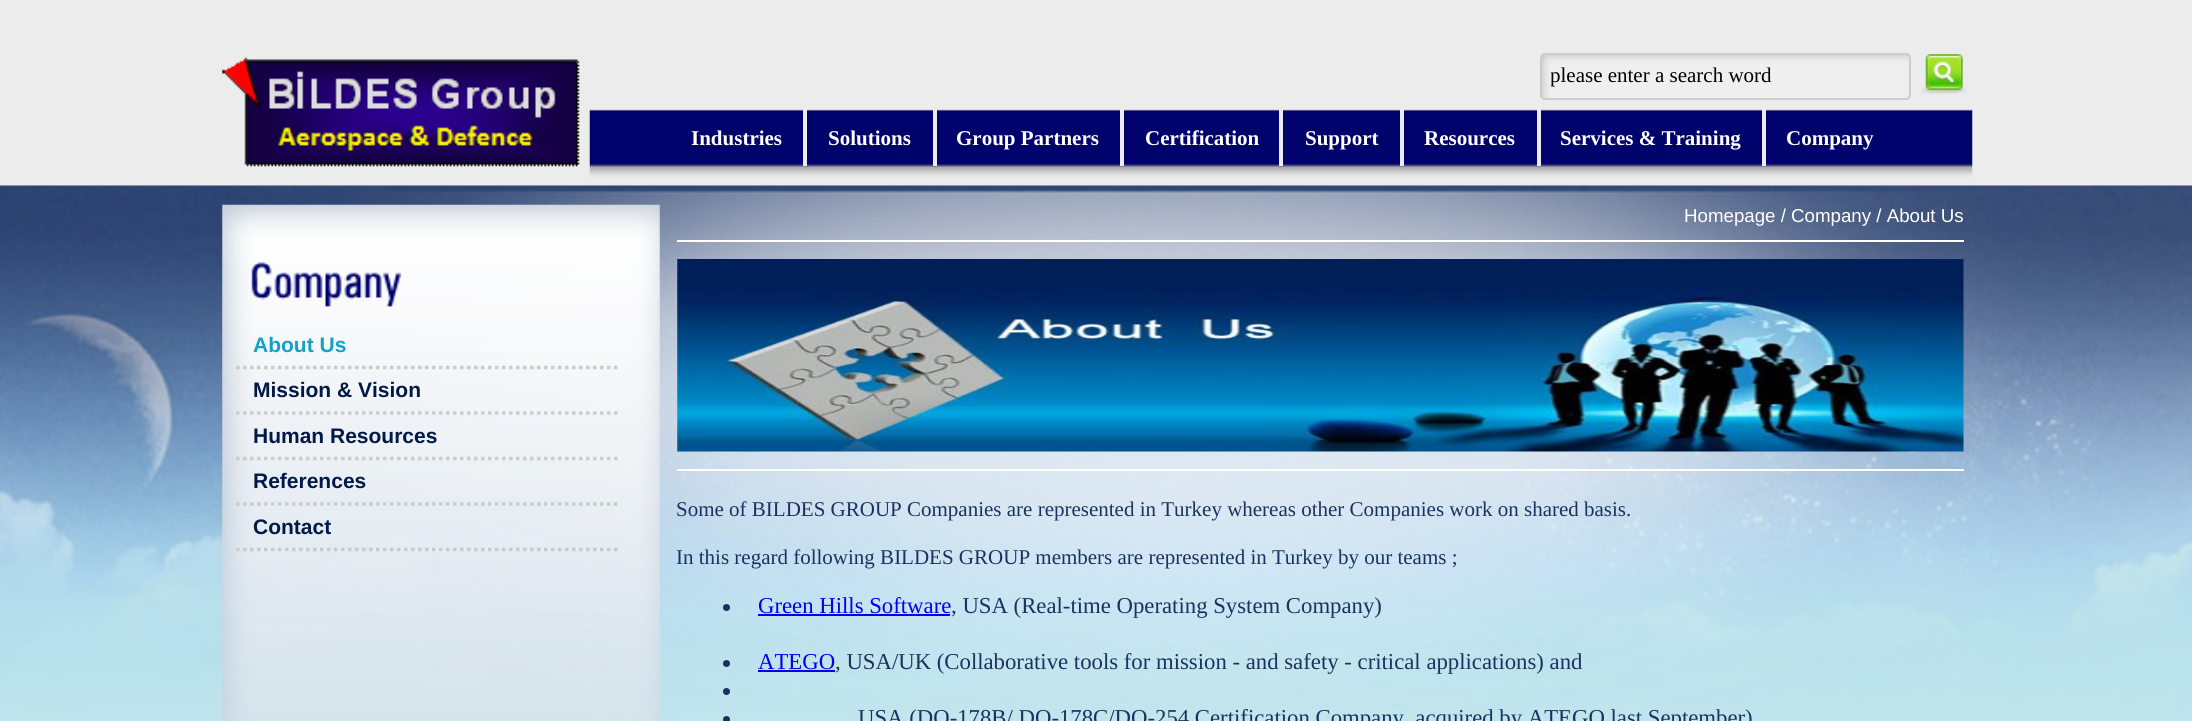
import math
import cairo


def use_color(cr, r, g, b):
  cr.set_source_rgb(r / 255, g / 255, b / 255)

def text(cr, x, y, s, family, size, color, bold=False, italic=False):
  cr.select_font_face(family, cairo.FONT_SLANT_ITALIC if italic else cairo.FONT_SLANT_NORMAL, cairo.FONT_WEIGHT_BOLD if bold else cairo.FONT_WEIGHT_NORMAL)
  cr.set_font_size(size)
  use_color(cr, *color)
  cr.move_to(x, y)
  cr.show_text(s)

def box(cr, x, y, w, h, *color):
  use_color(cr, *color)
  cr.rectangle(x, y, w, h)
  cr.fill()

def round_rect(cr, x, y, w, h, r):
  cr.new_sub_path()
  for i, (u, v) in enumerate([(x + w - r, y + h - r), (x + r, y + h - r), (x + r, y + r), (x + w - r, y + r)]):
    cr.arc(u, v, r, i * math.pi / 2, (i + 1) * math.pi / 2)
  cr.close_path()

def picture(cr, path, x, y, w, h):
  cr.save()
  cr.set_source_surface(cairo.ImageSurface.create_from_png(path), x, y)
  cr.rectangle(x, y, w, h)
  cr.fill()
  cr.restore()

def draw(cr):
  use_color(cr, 236, 236, 236)
  cr.paint()
  picture(cr, "img_01.png", 0, 184, 2192, 537)
  picture(cr, "img_02.png", 222, 57, 358, 110)
  picture(cr, "img_03.png", 1541, 54, 370, 46)
  round_rect(cr, 1541, 54, 369, 45, 4)
  use_color(cr, 204, 204, 204)
  cr.stroke()
  picture(cr, "img_04.png", 1921, 54, 46, 40)
  picture(cr, "img_05.png", 589, 109, 1384, 68)
  box(cr, 803, 109, 4, 57, 236, 236, 236)
  box(cr, 933, 109, 4, 57, 236, 236, 236)
  box(cr, 1120, 109, 4, 57, 236, 236, 236)
  box(cr, 1279, 109, 4, 57, 236, 236, 236)
  box(cr, 1400, 109, 4, 57, 236, 236, 236)
  box(cr, 1537, 109, 4, 57, 236, 236, 236)
  box(cr, 1762, 109, 4, 57, 236, 236, 236)
  picture(cr, "img_06.png", 222, 204, 438, 517)
  picture(cr, "img_07.png", 251, 262, 151, 45)
  cr.new_path()
  cr.move_to(236, 367.5)
  cr.line_to(621, 367.5)
  use_color(cr, 204, 204, 204)
  cr.set_line_width(3.5)
  cr.set_dash([3.5, 3.5])
  cr.stroke()
  cr.new_path()
  cr.move_to(236, 413)
  cr.line_to(621, 413)
  cr.stroke()
  cr.new_path()
  cr.move_to(236, 458.5)
  cr.line_to(621, 458.5)
  cr.stroke()
  cr.new_path()
  cr.move_to(236, 504)
  cr.line_to(621, 504)
  cr.stroke()
  cr.new_path()
  cr.move_to(236, 549.5)
  cr.line_to(621, 549.5)
  cr.stroke()
  box(cr, 677, 240, 1287, 2, 255, 255, 255)
  picture(cr, "img_08.png", 677, 259, 1287, 193)
  box(cr, 677, 469, 1287, 2, 255, 255, 255)
  use_color(cr, 26, 50, 96)
  cr.arc(726.5, 607.5, 3.5, 0, 2 * math.pi)
  cr.fill()
  box(cr, 758, 614, 192, 2, 0, 0, 238)
  use_color(cr, 26, 50, 96)
  cr.arc(726.5, 663.5, 3.5, 0, 2 * math.pi)
  cr.fill()
  box(cr, 758, 670, 77, 2, 0, 0, 238)
  use_color(cr, 26, 50, 96)
  cr.arc(726.5, 691.5, 3.5, 0, 2 * math.pi)
  cr.fill()
  cr.arc(726.5, 719.5, 3.5, 0, 2 * math.pi)
  cr.fill()
  cr.save()
  cr.rectangle(1551, 63, 350, 26)
  cr.clip()
  text(cr, 1550, 82, "please enter a search word", "Liberation Serif", 21, (0, 0, 0))
  cr.restore()
  text(cr, 691, 145, "Industries", "Liberation Serif", 21, (255, 255, 255), bold=True)
  text(cr, 828, 145, "Solutions", "Liberation Serif", 21, (255, 255, 255), bold=True)
  text(cr, 956, 145, "Group Partners", "Liberation Serif", 21, (255, 255, 255), bold=True)
  text(cr, 1145, 145, "Certification", "Liberation Serif", 21, (255, 255, 255), bold=True)
  text(cr, 1305, 145, "Support", "Liberation Serif", 21, (255, 255, 255), bold=True)
  text(cr, 1424, 145, "Resources", "Liberation Serif", 21, (255, 255, 255), bold=True)
  text(cr, 1560, 145, "Services & Training", "Liberation Serif", 21, (255, 255, 255), bold=True)
  text(cr, 1786, 145, "Company", "Liberation Serif", 21, (255, 255, 255), bold=True)
  text(cr, 253, 352, "About Us", "Liberation Sans", 21, (20, 160, 200), bold=True)
  text(cr, 253, 397, "Mission & Vision", "Liberation Sans", 21, (1, 25, 70), bold=True)
  text(cr, 253, 443, "Human Resources", "Liberation Sans", 21, (1, 25, 70), bold=True)
  text(cr, 253, 488, "References", "Liberation Sans", 21, (1, 25, 70), bold=True)
  text(cr, 253, 534, "Contact", "Liberation Sans", 21, (1, 25, 70), bold=True)
  text(cr, 1684, 222, "Homepage / Company / About Us", "Liberation Sans", 18.7, (255, 255, 255))
  text(cr, 676, 516, "Some of BILDES GROUP Companies are represented in Turkey whereas other Companies work on shared basis.", "Liberation Serif", 21, (26, 50, 96))
  text(cr, 676, 564, "In this regard following BILDES GROUP members are represented in Turkey by our teams ;", "Liberation Serif", 21, (26, 50, 96))
  text(cr, 758, 613, "Green Hills Software", "Liberation Serif", 22.75, (0, 0, 238))
  text(cr, 951, 613, ", USA (Real-time Operating System Company)", "Liberation Serif", 22.75, (26, 50, 96))
  text(cr, 758, 669, "ATEGO", "Liberation Serif", 22.75, (0, 0, 238))
  text(cr, 835, 669, ", USA/UK (Collaborative tools for mission - and safety - critical applications) and", "Liberation Serif", 22.75, (26, 50, 96))
  text(cr, 858, 725, "USA (DO-178B/ DO-178C/DO-254 Certification Company, acquired by ATEGO last September)", "Liberation Serif", 22.75, (26, 50, 96))


surface = cairo.ImageSurface(cairo.FORMAT_RGB24, 2192, 721)
cr = cairo.Context(surface)
options = cairo.FontOptions()
options.set_hint_metrics(cairo.HINT_METRICS_OFF)
options.set_hint_style(cairo.HINT_STYLE_NONE)
cr.set_font_options(options)
cr.set_miter_limit(4)
draw(cr)
surface.write_to_png("out.png")
